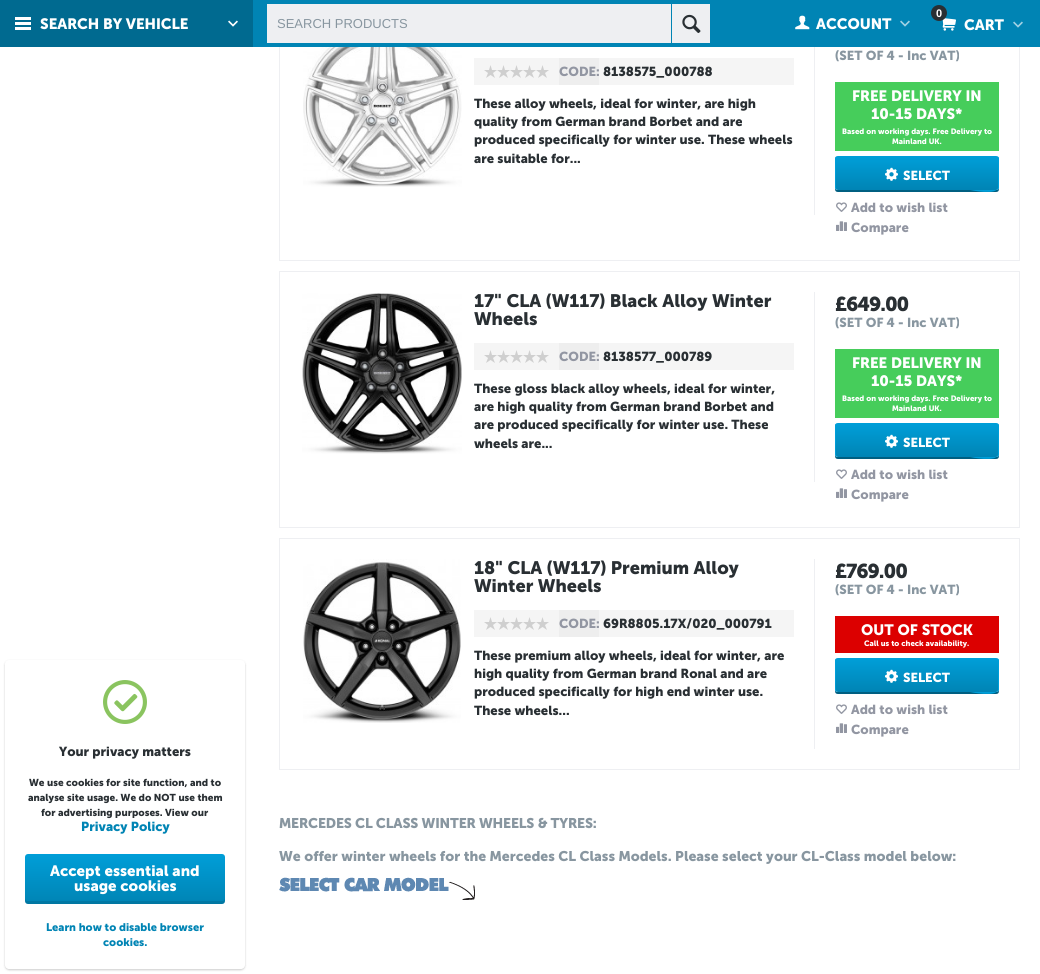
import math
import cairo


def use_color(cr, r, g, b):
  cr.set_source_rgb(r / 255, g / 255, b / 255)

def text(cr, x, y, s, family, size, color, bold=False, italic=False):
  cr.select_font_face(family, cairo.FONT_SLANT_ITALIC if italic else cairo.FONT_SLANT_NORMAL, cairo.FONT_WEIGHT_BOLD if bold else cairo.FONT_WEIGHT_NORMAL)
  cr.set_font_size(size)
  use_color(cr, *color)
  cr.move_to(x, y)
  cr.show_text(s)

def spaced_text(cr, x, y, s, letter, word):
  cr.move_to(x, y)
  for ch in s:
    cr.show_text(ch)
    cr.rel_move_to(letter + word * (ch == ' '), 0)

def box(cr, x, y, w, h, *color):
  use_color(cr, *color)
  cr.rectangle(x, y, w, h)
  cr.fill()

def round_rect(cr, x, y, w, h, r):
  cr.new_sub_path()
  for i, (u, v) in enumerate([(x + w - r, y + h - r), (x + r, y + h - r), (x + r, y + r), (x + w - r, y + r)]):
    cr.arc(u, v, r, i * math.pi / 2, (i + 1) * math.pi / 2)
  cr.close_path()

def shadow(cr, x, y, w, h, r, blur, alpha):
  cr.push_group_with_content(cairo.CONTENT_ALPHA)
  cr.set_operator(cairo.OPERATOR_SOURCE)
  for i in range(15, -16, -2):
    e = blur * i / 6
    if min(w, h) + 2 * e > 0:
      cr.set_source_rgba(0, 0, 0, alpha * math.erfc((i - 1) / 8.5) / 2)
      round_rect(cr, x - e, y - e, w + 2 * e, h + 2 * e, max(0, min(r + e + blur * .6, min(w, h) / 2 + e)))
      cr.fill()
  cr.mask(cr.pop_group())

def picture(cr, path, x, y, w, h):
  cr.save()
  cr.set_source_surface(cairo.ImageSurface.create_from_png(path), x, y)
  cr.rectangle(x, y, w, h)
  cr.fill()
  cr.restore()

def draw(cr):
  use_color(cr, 255, 255, 255)
  cr.paint()
  cr.rectangle(279.5, 4.5, 740, 256)
  use_color(cr, 238, 239, 242)
  cr.set_line_width(1)
  cr.stroke()
  box(cr, 253, 0, 787, 47, 0, 132, 180)
  box(cr, 0, 0, 253, 47, 0, 106, 144)
  picture(cr, "img_01.png", 15, 17, 16, 13)
  picture(cr, "img_02.png", 228, 20, 10, 7)
  box(cr, 267, 4, 404, 39, 238, 239, 242)
  box(cr, 672, 4, 38, 39, 238, 239, 242)
  picture(cr, "img_03.png", 682, 14, 19, 19)
  picture(cr, "img_04.png", 795, 15, 15, 15)
  picture(cr, "img_05.png", 900, 20, 10, 7)
  picture(cr, "img_06.png", 942, 18, 14, 13)
  use_color(cr, 41, 47, 51)
  cr.arc(939, 13, 8, 0, 2 * math.pi)
  cr.fill()
  picture(cr, "img_05.png", 1013, 21, 10, 7)
  picture(cr, "img_07.png", 303, 47, 159, 140)
  box(cr, 814, 47, 1, 168, 238, 239, 242)
  box(cr, 474, 58, 320, 27, 245, 245, 245)
  picture(cr, "img_08.png", 484, 65, 13, 13)
  picture(cr, "img_08.png", 497, 65, 13, 13)
  picture(cr, "img_08.png", 510, 65, 13, 13)
  picture(cr, "img_08.png", 523, 65, 13, 13)
  picture(cr, "img_08.png", 536, 65, 13, 13)
  box(cr, 559, 58, 40, 27, 238, 238, 238)
  box(cr, 835, 82, 164, 69, 70, 205, 91)
  use_color(cr, 0, 95, 129)
  cr.new_path()
  cr.move_to(835, 187)
  cr.line_to(835, 189)
  cr.curve_to(835, 191, 836, 192, 838, 192)
  cr.line_to(996, 192)
  cr.curve_to(998, 192, 999, 191, 999, 189)
  cr.line_to(999, 187)
  cr.curve_to(999, 189, 998, 190, 996, 190)
  cr.line_to(838, 190)
  cr.curve_to(836, 190, 835, 189, 835, 187)
  cr.close_path()
  cr.fill()
  cr.save()
  round_rect(cr, 835, 156, 164, 34, 3)
  cr.clip()
  gradient = cairo.LinearGradient(917, 157, 917, 190)
  gradient.add_color_stop_rgba(0, 0, 0.62, 0.847, 1)
  gradient.add_color_stop_rgba(1, 0, 0.518, 0.706, 1)
  cr.set_source(gradient)
  cr.new_path()
  cr.move_to(835, 157)
  cr.line_to(999, 157)
  cr.line_to(999, 187)
  cr.curve_to(999, 188.5, 997.5, 190, 996, 190)
  cr.line_to(838, 190)
  cr.curve_to(836.5, 190, 835, 188.5, 835, 187)
  cr.close_path()
  cr.fill()
  cr.restore()
  use_color(cr, 0, 158, 216)
  cr.set_fill_rule(cairo.FILL_RULE_EVEN_ODD)
  cr.new_path()
  cr.move_to(838, 156)
  cr.line_to(996, 156)
  cr.curve_to(998, 156, 999, 157, 999, 159)
  cr.line_to(999, 187)
  cr.curve_to(999, 189, 998, 190, 996, 190)
  cr.line_to(838, 190)
  cr.curve_to(836, 190, 835, 189, 835, 187)
  cr.line_to(835, 159)
  cr.curve_to(835, 157, 836, 156, 838, 156)
  cr.close_path()
  cr.move_to(838, 157)
  cr.line_to(997, 157)
  cr.line_to(998, 159)
  cr.line_to(998, 187)
  cr.curve_to(998, 196, 970, 190, 970, 190)
  cr.line_to(837, 190)
  cr.curve_to(835, 188, 836, 176, 836, 173)
  cr.line_to(836, 164)
  cr.curve_to(836, 162, 835, 157, 838, 157)
  cr.close_path()
  cr.fill()
  picture(cr, "img_09.png", 885, 167, 13, 14)
  picture(cr, "img_10.png", 836, 202, 11, 10)
  picture(cr, "img_11.png", 836, 221, 11, 10)
  cr.rectangle(279.5, 271.5, 740, 256)
  use_color(cr, 238, 239, 242)
  cr.stroke()
  picture(cr, "img_12.png", 302, 293, 160, 161)
  box(cr, 814, 292, 1, 190, 238, 239, 242)
  box(cr, 474, 343, 320, 27, 245, 245, 245)
  picture(cr, "img_08.png", 484, 350, 13, 13)
  picture(cr, "img_08.png", 497, 350, 13, 13)
  picture(cr, "img_08.png", 510, 350, 13, 13)
  picture(cr, "img_08.png", 523, 350, 13, 13)
  picture(cr, "img_08.png", 536, 350, 13, 13)
  box(cr, 559, 343, 40, 27, 238, 238, 238)
  box(cr, 835, 349, 164, 69, 70, 205, 91)
  use_color(cr, 0, 95, 129)
  cr.set_fill_rule(cairo.FILL_RULE_WINDING)
  cr.new_path()
  cr.move_to(835, 454)
  cr.line_to(835, 456)
  cr.curve_to(835, 458, 836, 459, 838, 459)
  cr.line_to(996, 459)
  cr.curve_to(998, 459, 999, 458, 999, 456)
  cr.line_to(999, 454)
  cr.curve_to(999, 456, 998, 457, 996, 457)
  cr.line_to(838, 457)
  cr.curve_to(836, 457, 835, 456, 835, 454)
  cr.close_path()
  cr.fill()
  cr.save()
  round_rect(cr, 835, 423, 164, 34, 3)
  cr.clip()
  gradient = cairo.LinearGradient(917, 424, 917, 457)
  gradient.add_color_stop_rgba(0, 0, 0.62, 0.847, 1)
  gradient.add_color_stop_rgba(1, 0, 0.518, 0.706, 1)
  cr.set_source(gradient)
  cr.new_path()
  cr.move_to(835, 424)
  cr.line_to(999, 424)
  cr.line_to(999, 454)
  cr.curve_to(999, 455.5, 997.5, 457, 996, 457)
  cr.line_to(838, 457)
  cr.curve_to(836.5, 457, 835, 455.5, 835, 454)
  cr.close_path()
  cr.fill()
  cr.restore()
  use_color(cr, 0, 158, 216)
  cr.set_fill_rule(cairo.FILL_RULE_EVEN_ODD)
  cr.new_path()
  cr.move_to(838, 423)
  cr.line_to(996, 423)
  cr.curve_to(998, 423, 999, 424, 999, 426)
  cr.line_to(999, 454)
  cr.curve_to(999, 456, 998, 457, 996, 457)
  cr.line_to(838, 457)
  cr.curve_to(836, 457, 835, 456, 835, 454)
  cr.line_to(835, 426)
  cr.curve_to(835, 424, 836, 423, 838, 423)
  cr.close_path()
  cr.move_to(838, 424)
  cr.line_to(997, 424)
  cr.line_to(998, 426)
  cr.line_to(998, 454)
  cr.curve_to(998, 463, 970, 457, 970, 457)
  cr.line_to(837, 457)
  cr.curve_to(835, 455, 836, 443, 836, 440)
  cr.line_to(836, 431)
  cr.curve_to(836, 429, 835, 424, 838, 424)
  cr.close_path()
  cr.fill()
  picture(cr, "img_09.png", 885, 434, 13, 14)
  picture(cr, "img_10.png", 836, 469, 11, 10)
  picture(cr, "img_11.png", 836, 488, 11, 10)
  cr.rectangle(279.5, 538.5, 740, 231)
  use_color(cr, 238, 239, 242)
  cr.stroke()
  picture(cr, "img_13.png", 303, 559, 158, 164)
  box(cr, 814, 559, 1, 190, 238, 239, 242)
  box(cr, 474, 610, 320, 27, 245, 245, 245)
  picture(cr, "img_08.png", 484, 617, 13, 13)
  picture(cr, "img_08.png", 497, 617, 13, 13)
  picture(cr, "img_08.png", 510, 617, 13, 13)
  picture(cr, "img_08.png", 523, 617, 13, 13)
  picture(cr, "img_08.png", 536, 617, 13, 13)
  box(cr, 559, 610, 40, 27, 238, 238, 238)
  box(cr, 835, 616, 164, 37, 220, 0, 0)
  use_color(cr, 0, 95, 129)
  cr.set_fill_rule(cairo.FILL_RULE_WINDING)
  cr.new_path()
  cr.move_to(835, 689)
  cr.line_to(835, 691)
  cr.curve_to(835, 693, 836, 694, 838, 694)
  cr.line_to(996, 694)
  cr.curve_to(998, 694, 999, 693, 999, 691)
  cr.line_to(999, 689)
  cr.curve_to(999, 691, 998, 692, 996, 692)
  cr.line_to(838, 692)
  cr.curve_to(836, 692, 835, 691, 835, 689)
  cr.close_path()
  cr.fill()
  cr.save()
  round_rect(cr, 835, 658, 164, 34, 3)
  cr.clip()
  gradient = cairo.LinearGradient(917, 659, 917, 692)
  gradient.add_color_stop_rgba(0, 0, 0.62, 0.847, 1)
  gradient.add_color_stop_rgba(1, 0, 0.518, 0.706, 1)
  cr.set_source(gradient)
  cr.new_path()
  cr.move_to(835, 659)
  cr.line_to(999, 659)
  cr.line_to(999, 689)
  cr.curve_to(999, 690.5, 997.5, 692, 996, 692)
  cr.line_to(838, 692)
  cr.curve_to(836.5, 692, 835, 690.5, 835, 689)
  cr.close_path()
  cr.fill()
  cr.restore()
  use_color(cr, 0, 158, 216)
  cr.set_fill_rule(cairo.FILL_RULE_EVEN_ODD)
  cr.new_path()
  cr.move_to(838, 658)
  cr.line_to(996, 658)
  cr.curve_to(998, 658, 999, 659, 999, 661)
  cr.line_to(999, 689)
  cr.curve_to(999, 691, 998, 692, 996, 692)
  cr.line_to(838, 692)
  cr.curve_to(836, 692, 835, 691, 835, 689)
  cr.line_to(835, 661)
  cr.curve_to(835, 659, 836, 658, 838, 658)
  cr.close_path()
  cr.move_to(838, 659)
  cr.line_to(997, 659)
  cr.line_to(998, 661)
  cr.line_to(998, 689)
  cr.curve_to(998, 698, 970, 692, 970, 692)
  cr.line_to(837, 692)
  cr.curve_to(835, 690, 836, 678, 836, 675)
  cr.line_to(836, 666)
  cr.curve_to(836, 664, 835, 659, 838, 659)
  cr.close_path()
  cr.fill()
  picture(cr, "img_09.png", 885, 669, 13, 14)
  picture(cr, "img_10.png", 836, 704, 11, 10)
  picture(cr, "img_11.png", 836, 723, 11, 10)
  picture(cr, "img_14.png", 279, 877, 196, 23)
  use_color(cr, 0, 0, 0)
  shadow(cr, 5, 661, 240, 309, 4, 1, 0.2)
  use_color(cr, 255, 255, 255)
  round_rect(cr, 5, 660, 240, 309, 4)
  cr.fill()
  picture(cr, "img_15.png", 103, 680, 44, 44)
  gradient = cairo.LinearGradient(125, 854, 125, 904)
  gradient.add_color_stop_rgba(0, 0, 0.62, 0.847, 1)
  gradient.add_color_stop_rgba(1, 0, 0.518, 0.706, 1)
  cr.set_source(gradient)
  round_rect(cr, 25, 854, 200, 50, 3)
  cr.fill()
  cr.set_source_rgba(0, 0, 0, 0.1)
  cr.set_fill_rule(cairo.FILL_RULE_WINDING)
  cr.new_path()
  cr.move_to(25, 898)
  cr.line_to(25, 901)
  cr.curve_to(25, 903, 26, 904, 28, 904)
  cr.line_to(222, 904)
  cr.curve_to(224, 904, 225, 903, 225, 901)
  cr.line_to(225, 898)
  cr.curve_to(225, 900, 224, 901, 222, 901)
  cr.line_to(28, 901)
  cr.curve_to(26, 901, 25, 900, 25, 898)
  cr.close_path()
  cr.fill()
  text(cr, 40, 29, "SEARCH BY VEHICLE", "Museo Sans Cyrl", 15, (255, 255, 255), bold=True)
  text(cr, 277, 28, "SEARCH PRODUCTS", "Liberation Sans", 13, (136, 150, 160))
  text(cr, 816, 29, "ACCOUNT", "Museo Sans Cyrl", 15, (255, 255, 255), bold=True)
  text(cr, 936, 17, "0", "Liberation Sans", 11, (255, 255, 255), bold=True)
  text(cr, 964, 30, "CART", "Museo Sans Cyrl", 15, (255, 255, 255), bold=True)
  text(cr, 559, 76, "CODE:", "Museo Sans Cyrl", 13, (146, 150, 162), bold=True)
  text(cr, 603, 76, "8138575_000788", "Museo Sans Cyrl", 13, (41, 47, 51), bold=True)
  text(cr, 474, 108, "These alloy wheels, ideal for winter, are high", "Museo Sans Cyrl", 13, (41, 47, 51), bold=True)
  text(cr, 474, 126, "quality from German brand Borbet and are", "Museo Sans Cyrl", 13, (41, 47, 51), bold=True)
  text(cr, 474, 144, "produced specifically for winter use. These wheels", "Museo Sans Cyrl", 13, (41, 47, 51), bold=True)
  text(cr, 474, 163, "are suitable for...", "Museo Sans Cyrl", 13, (41, 47, 51), bold=True)
  text(cr, 835, 60, "(SET OF 4 - Inc VAT)", "Museo Sans Cyrl", 13, (136, 150, 160), bold=True)
  text(cr, 852, 101, "FREE DELIVERY IN", "Museo Sans Cyrl", 15, (255, 255, 255), bold=True)
  text(cr, 871, 119, "10-15 DAYS*", "Museo Sans Cyrl", 15, (255, 255, 255), bold=True)
  text(cr, 842, 134, "Based on working days. Free Delivery to", "Museo Sans Cyrl", 7.75, (255, 255, 255), bold=True)
  text(cr, 892, 144, "Mainland UK.", "Museo Sans Cyrl", 7.75, (255, 255, 255), bold=True)
  text(cr, 903, 180, "SELECT", "Museo Sans Cyrl", 13, (255, 255, 255), bold=True)
  text(cr, 851, 212, "Add to wish list", "Museo Sans Cyrl", 13, (146, 150, 162), bold=True)
  text(cr, 851, 232, "Compare", "Museo Sans Cyrl", 13, (146, 150, 162), bold=True)
  text(cr, 474, 307, "17\" CLA (W117) Black Alloy Winter", "Museo Sans Cyrl", 18, (41, 47, 51), bold=True)
  text(cr, 474, 325, "Wheels", "Museo Sans Cyrl", 18, (41, 47, 51), bold=True)
  text(cr, 559, 361, "CODE:", "Museo Sans Cyrl", 13, (146, 150, 162), bold=True)
  text(cr, 603, 361, "8138577_000789", "Museo Sans Cyrl", 13, (41, 47, 51), bold=True)
  text(cr, 474, 393, "These gloss black alloy wheels, ideal for winter,", "Museo Sans Cyrl", 13, (41, 47, 51), bold=True)
  text(cr, 474, 411, "are high quality from German brand Borbet and", "Museo Sans Cyrl", 13, (41, 47, 51), bold=True)
  text(cr, 474, 429, "are produced specifically for winter use. These", "Museo Sans Cyrl", 13, (41, 47, 51), bold=True)
  text(cr, 474, 448, "wheels are...", "Museo Sans Cyrl", 13, (41, 47, 51), bold=True)
  cr.set_font_size(20)
  spaced_text(cr, 835, 311, "£649.00", -1, 0)
  text(cr, 835, 327, "(SET OF 4 - Inc VAT)", "Museo Sans Cyrl", 13, (136, 150, 160), bold=True)
  text(cr, 852, 368, "FREE DELIVERY IN", "Museo Sans Cyrl", 15, (255, 255, 255), bold=True)
  text(cr, 871, 386, "10-15 DAYS*", "Museo Sans Cyrl", 15, (255, 255, 255), bold=True)
  text(cr, 842, 401, "Based on working days. Free Delivery to", "Museo Sans Cyrl", 7.75, (255, 255, 255), bold=True)
  text(cr, 892, 411, "Mainland UK.", "Museo Sans Cyrl", 7.75, (255, 255, 255), bold=True)
  text(cr, 903, 447, "SELECT", "Museo Sans Cyrl", 13, (255, 255, 255), bold=True)
  text(cr, 851, 479, "Add to wish list", "Museo Sans Cyrl", 13, (146, 150, 162), bold=True)
  text(cr, 851, 499, "Compare", "Museo Sans Cyrl", 13, (146, 150, 162), bold=True)
  text(cr, 474, 574, "18\" CLA (W117) Premium Alloy", "Museo Sans Cyrl", 18, (41, 47, 51), bold=True)
  text(cr, 474, 592, "Winter Wheels", "Museo Sans Cyrl", 18, (41, 47, 51), bold=True)
  text(cr, 559, 628, "CODE:", "Museo Sans Cyrl", 13, (146, 150, 162), bold=True)
  text(cr, 603, 628, "69R8805.17X/020_000791", "Museo Sans Cyrl", 13, (41, 47, 51), bold=True)
  text(cr, 474, 660, "These premium alloy wheels, ideal for winter, are", "Museo Sans Cyrl", 13, (41, 47, 51), bold=True)
  text(cr, 474, 678, "high quality from German brand Ronal and are", "Museo Sans Cyrl", 13, (41, 47, 51), bold=True)
  text(cr, 474, 696, "produced specifically for high end winter use.", "Museo Sans Cyrl", 13, (41, 47, 51), bold=True)
  text(cr, 474, 715, "These wheels...", "Museo Sans Cyrl", 13, (41, 47, 51), bold=True)
  cr.set_font_size(20)
  spaced_text(cr, 835, 578, "£769.00", -1, 0)
  text(cr, 835, 594, "(SET OF 4 - Inc VAT)", "Museo Sans Cyrl", 13, (136, 150, 160), bold=True)
  text(cr, 861, 635, "OUT OF STOCK", "Museo Sans Cyrl", 15, (255, 255, 255), bold=True)
  text(cr, 864, 646, "Call us to check availability.", "Museo Sans Cyrl", 7.75, (255, 255, 255), bold=True)
  text(cr, 903, 682, "SELECT", "Museo Sans Cyrl", 13, (255, 255, 255), bold=True)
  text(cr, 851, 714, "Add to wish list", "Museo Sans Cyrl", 13, (146, 150, 162), bold=True)
  text(cr, 851, 734, "Compare", "Museo Sans Cyrl", 13, (146, 150, 162), bold=True)
  cr.set_font_size(14)
  use_color(cr, 136, 150, 160)
  spaced_text(cr, 279, 828, "MERCEDES CL CLASS WINTER WHEELS & TYRES:", -0.15, 0)
  text(cr, 279, 861, "We offer winter wheels for the Mercedes CL Class Models. Please select your CL-Class model below:", "Museo Sans Cyrl", 14, (136, 150, 160), bold=True)
  text(cr, 59, 756, "Your privacy matters", "Museo Sans Cyrl", 13, (41, 47, 51), bold=True)
  text(cr, 29, 786, "We use cookies for site function, and to", "Museo Sans Cyrl", 10, (41, 47, 51), bold=True)
  text(cr, 28, 801, "analyse site usage. We do NOT use them", "Museo Sans Cyrl", 10, (41, 47, 51), bold=True)
  text(cr, 41, 816, "for advertising purposes. View our", "Museo Sans Cyrl", 10, (41, 47, 51), bold=True)
  text(cr, 81, 831, "Privacy Policy", "Museo Sans Cyrl", 13, (0, 132, 180), bold=True)
  text(cr, 50, 876, "Accept essential and", "Museo Sans Cyrl", 15, (255, 255, 255), bold=True)
  text(cr, 74, 891, "usage cookies", "Museo Sans Cyrl", 15, (255, 255, 255), bold=True)
  text(cr, 46, 931, "Learn how to disable browser", "Museo Sans Cyrl", 11, (0, 132, 180), bold=True)
  text(cr, 103, 946, "cookies.", "Museo Sans Cyrl", 11, (0, 132, 180), bold=True)


surface = cairo.ImageSurface(cairo.FORMAT_RGB24, 1040, 974)
cr = cairo.Context(surface)
options = cairo.FontOptions()
options.set_hint_metrics(cairo.HINT_METRICS_OFF)
options.set_hint_style(cairo.HINT_STYLE_NONE)
cr.set_font_options(options)
cr.set_miter_limit(4)
draw(cr)
surface.write_to_png("out.png")
